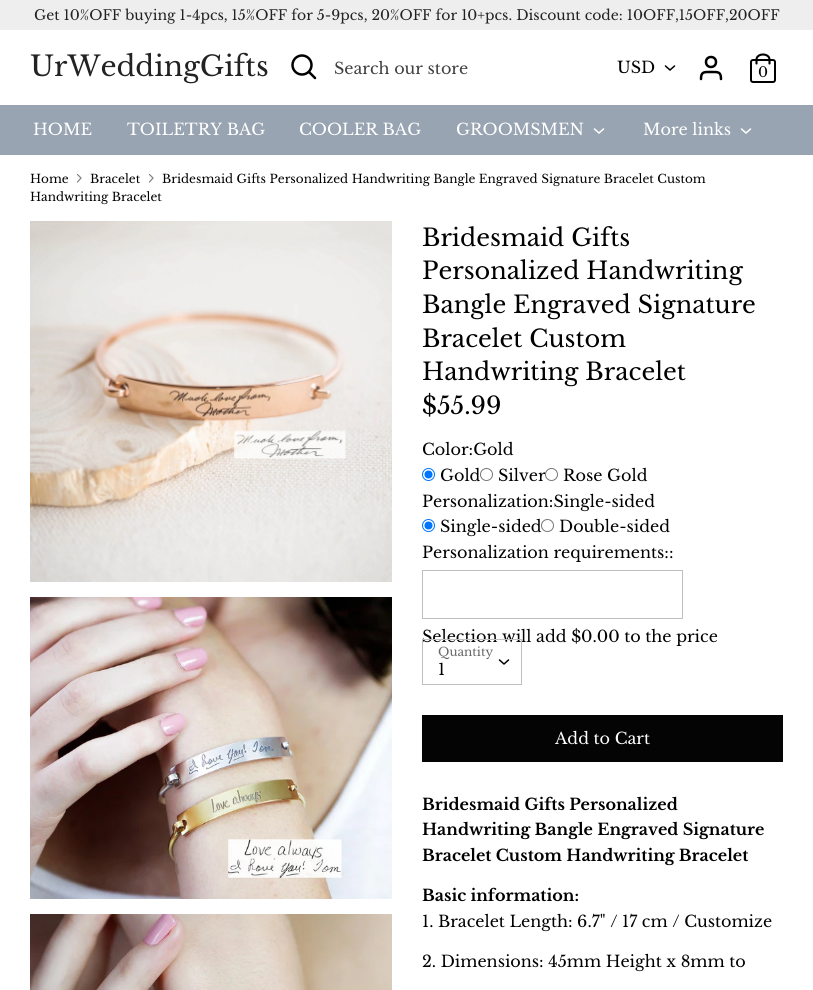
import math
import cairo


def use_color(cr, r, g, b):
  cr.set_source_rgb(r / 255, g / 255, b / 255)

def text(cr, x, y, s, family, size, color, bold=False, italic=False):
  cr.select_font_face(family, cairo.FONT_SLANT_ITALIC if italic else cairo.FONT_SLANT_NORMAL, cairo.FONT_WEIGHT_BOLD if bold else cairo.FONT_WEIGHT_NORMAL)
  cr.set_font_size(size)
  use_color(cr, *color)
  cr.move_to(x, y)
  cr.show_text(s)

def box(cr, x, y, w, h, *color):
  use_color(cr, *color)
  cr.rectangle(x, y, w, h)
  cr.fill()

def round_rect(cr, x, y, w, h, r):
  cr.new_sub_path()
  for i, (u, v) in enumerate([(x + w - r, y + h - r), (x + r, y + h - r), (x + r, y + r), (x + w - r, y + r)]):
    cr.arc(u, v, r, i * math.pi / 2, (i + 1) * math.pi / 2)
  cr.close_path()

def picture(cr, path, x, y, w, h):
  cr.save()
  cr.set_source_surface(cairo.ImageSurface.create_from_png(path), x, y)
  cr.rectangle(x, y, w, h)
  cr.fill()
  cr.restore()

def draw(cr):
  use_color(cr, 255, 255, 255)
  cr.paint()
  box(cr, 0, 0, 813, 30, 238, 238, 238)
  cr.arc(302, 65, 9.5, 0, 2 * math.pi)
  use_color(cr, 0, 0, 0)
  cr.set_line_width(2.5)
  cr.stroke()
  cr.new_path()
  cr.move_to(315, 78)
  cr.line_to(309, 72)
  cr.set_line_cap(cairo.LINE_CAP_ROUND)
  cr.stroke()
  cr.new_path()
  cr.move_to(665.5, 66)
  cr.line_to(670, 70)
  cr.line_to(674.5, 66)
  cr.set_line_width(1.5)
  cr.stroke()
  cr.new_path()
  cr.move_to(721, 79)
  cr.curve_to(721, 71.5, 718, 72, 711, 72)
  cr.curve_to(704, 72, 701, 71.5, 701, 79)
  cr.set_line_width(2.5)
  cr.stroke()
  cr.arc(711, 62, 5, 0, 2 * math.pi)
  cr.set_line_cap(cairo.LINE_CAP_BUTT)
  cr.stroke()
  round_rect(cr, 751, 60, 24, 22, 2)
  cr.set_line_width(2)
  cr.stroke()
  cr.new_path()
  cr.move_to(756.5, 63.5)
  cr.line_to(756.5, 59.5)
  cr.curve_to(756.5, 56.5, 759.5, 54.5, 763, 54.5)
  cr.curve_to(766.5, 54.5, 769.5, 56.5, 769.5, 59.5)
  cr.line_to(769.5, 63.5)
  cr.set_line_width(2.1)
  cr.set_line_cap(cairo.LINE_CAP_ROUND)
  cr.stroke()
  box(cr, 0, 105, 813, 50, 152, 164, 177)
  cr.new_path()
  cr.move_to(594.5, 129)
  cr.line_to(599, 133)
  cr.line_to(603.5, 129)
  use_color(cr, 255, 255, 255)
  cr.set_line_width(1.5)
  cr.stroke()
  cr.new_path()
  cr.move_to(741.5, 129)
  cr.line_to(746, 133)
  cr.line_to(750.5, 129)
  cr.stroke()
  cr.new_path()
  cr.move_to(77.5, 182)
  cr.line_to(81, 178)
  cr.line_to(77.5, 174.5)
  use_color(cr, 128, 128, 128)
  cr.set_line_width(1.2)
  cr.stroke()
  cr.new_path()
  cr.move_to(149.5, 182)
  cr.line_to(153, 178)
  cr.line_to(149.5, 174.5)
  cr.stroke()
  picture(cr, "img_01.png", 30, 221, 362, 361)
  picture(cr, "img_02.png", 30, 597, 362, 302)
  picture(cr, "img_03.png", 30, 914, 362, 76)
  cr.arc(428.5, 474.5, 6, 0, 2 * math.pi)
  use_color(cr, 0, 117, 255)
  cr.set_line_width(1)
  cr.set_line_cap(cairo.LINE_CAP_BUTT)
  cr.stroke()
  cr.arc(428.5, 474.5, 4, 0, 2 * math.pi)
  cr.fill()
  cr.arc(486.5, 474.5, 6, 0, 2 * math.pi)
  use_color(cr, 118, 118, 118)
  cr.stroke()
  cr.arc(428.5, 525.5, 6, 0, 2 * math.pi)
  use_color(cr, 0, 117, 255)
  cr.stroke()
  cr.arc(428.5, 525.5, 4, 0, 2 * math.pi)
  cr.fill()
  cr.arc(547.5, 525.5, 6, 0, 2 * math.pi)
  use_color(cr, 118, 118, 118)
  cr.stroke()
  cr.rectangle(422.5, 570.5, 260, 48)
  use_color(cr, 191, 191, 191)
  cr.stroke()
  cr.rectangle(422.5, 715.5, 360, 46)
  use_color(cr, 4, 4, 4)
  cr.stroke()
  box(cr, 423, 716, 359, 45, 4, 4, 4)
  text(cr, 34, 20, "Get 10%OFF buying 1-4pcs, 15%OFF for 5-9pcs, 20%OFF for 10+pcs. Discount code: 10OFF,15OFF,20OFF", "Libre Baskerville", 14, (34, 34, 34))
  text(cr, 30, 76, "UrWeddingGifts", "Libre Baskerville", 28, (34, 34, 34))
  text(cr, 334, 74, "Search our store", "Libre Baskerville", 16, (64, 64, 64))
  text(cr, 617, 73, "USD", "Libre Baskerville", 16, (0, 0, 0))
  text(cr, 758, 77, "0", "Libre Baskerville", 14, (0, 0, 0))
  text(cr, 33, 135, "HOME", "Libre Baskerville", 16, (255, 255, 255))
  text(cr, 127, 135, "TOILETRY BAG", "Libre Baskerville", 16, (255, 255, 255))
  text(cr, 299, 135, "COOLER BAG", "Libre Baskerville", 16, (255, 255, 255))
  text(cr, 456, 135, "GROOMSMEN", "Libre Baskerville", 16, (255, 255, 255))
  text(cr, 643, 135, "More links", "Libre Baskerville", 16, (255, 255, 255))
  text(cr, 30, 183, "Home", "Libre Baskerville", 12, (0, 0, 0))
  text(cr, 90, 183, "Bracelet", "Libre Baskerville", 12, (0, 0, 0))
  text(cr, 162, 183, "Bridesmaid Gifts Personalized Handwriting Bangle Engraved Signature Bracelet Custom", "Libre Baskerville", 12, (0, 0, 0))
  text(cr, 30, 201, "Handwriting Bracelet", "Libre Baskerville", 12, (0, 0, 0))
  text(cr, 422, 246, "Bridesmaid Gifts", "Libre Baskerville", 24, (0, 0, 0))
  text(cr, 422, 279, "Personalized Handwriting", "Libre Baskerville", 24, (0, 0, 0))
  text(cr, 422, 313, "Bangle Engraved Signature", "Libre Baskerville", 24, (0, 0, 0))
  text(cr, 422, 347, "Bracelet Custom", "Libre Baskerville", 24, (0, 0, 0))
  text(cr, 422, 380, "Handwriting Bracelet", "Libre Baskerville", 24, (0, 0, 0))
  text(cr, 422, 414, "$55.99", "Libre Baskerville", 24, (0, 0, 0))
  text(cr, 422, 455, "Color:Gold", "Libre Baskerville", 16, (0, 0, 0))
  text(cr, 440, 481, "Gold", "Libre Baskerville", 16, (0, 0, 0))
  text(cr, 498, 481, "Silver", "Libre Baskerville", 16, (0, 0, 0))
  use_color(cr, 255, 255, 255)
  cr.new_path()
  cr.arc(551.5, 474.5, 6, 0, 2 * math.pi)
  cr.fill_preserve()
  use_color(cr, 118, 118, 118)
  cr.stroke()
  text(cr, 563, 481, "Rose Gold", "Libre Baskerville", 16, (0, 0, 0))
  text(cr, 422, 507, "Personalization:Single-sided", "Libre Baskerville", 16, (0, 0, 0))
  text(cr, 440, 532, "Single-sided", "Libre Baskerville", 16, (0, 0, 0))
  text(cr, 559, 532, "Double-sided", "Libre Baskerville", 16, (0, 0, 0))
  text(cr, 422, 558, "Personalization requirements::", "Libre Baskerville", 16, (0, 0, 0))
  text(cr, 422, 642, "Selection will add $0.00 to the price", "Libre Baskerville", 16, (0, 0, 0))
  cr.rectangle(422.5, 639.5, 99, 45)
  use_color(cr, 191, 191, 191)
  cr.stroke()
  text(cr, 438, 656, "Quantity", "Libre Baskerville", 12, (102, 102, 102))
  cr.new_path()
  cr.move_to(499.5, 660)
  cr.line_to(504, 664)
  cr.line_to(508.5, 660)
  use_color(cr, 0, 0, 0)
  cr.set_line_width(1.5)
  cr.set_line_cap(cairo.LINE_CAP_ROUND)
  cr.set_line_join(cairo.LINE_JOIN_ROUND)
  cr.stroke()
  text(cr, 438, 675, "1", "Libre Baskerville", 16, (0, 0, 0))
  text(cr, 555, 744, "Add to Cart", "Libre Baskerville", 16, (255, 255, 255))
  text(cr, 422, 810, "Bridesmaid Gifts Personalized", "Libre Baskerville", 16, (0, 0, 0), bold=True)
  text(cr, 422, 835, "Handwriting Bangle Engraved Signature", "Libre Baskerville", 16, (0, 0, 0), bold=True)
  text(cr, 422, 861, "Bracelet Custom Handwriting Bracelet", "Libre Baskerville", 16, (0, 0, 0), bold=True)
  text(cr, 422, 901, "Basic information:", "Libre Baskerville", 16, (0, 0, 0), bold=True)
  text(cr, 422, 927, "1. Bracelet Length: 6.7\" / 17 cm / Customize", "Libre Baskerville", 16, (0, 0, 0))
  text(cr, 422, 967, "2. Dimensions: 45mm Height x 8mm to", "Libre Baskerville", 16, (0, 0, 0))


surface = cairo.ImageSurface(cairo.FORMAT_RGB24, 813, 990)
cr = cairo.Context(surface)
options = cairo.FontOptions()
options.set_hint_metrics(cairo.HINT_METRICS_OFF)
options.set_hint_style(cairo.HINT_STYLE_NONE)
cr.set_font_options(options)
cr.set_miter_limit(4)
draw(cr)
surface.write_to_png("out.png")
